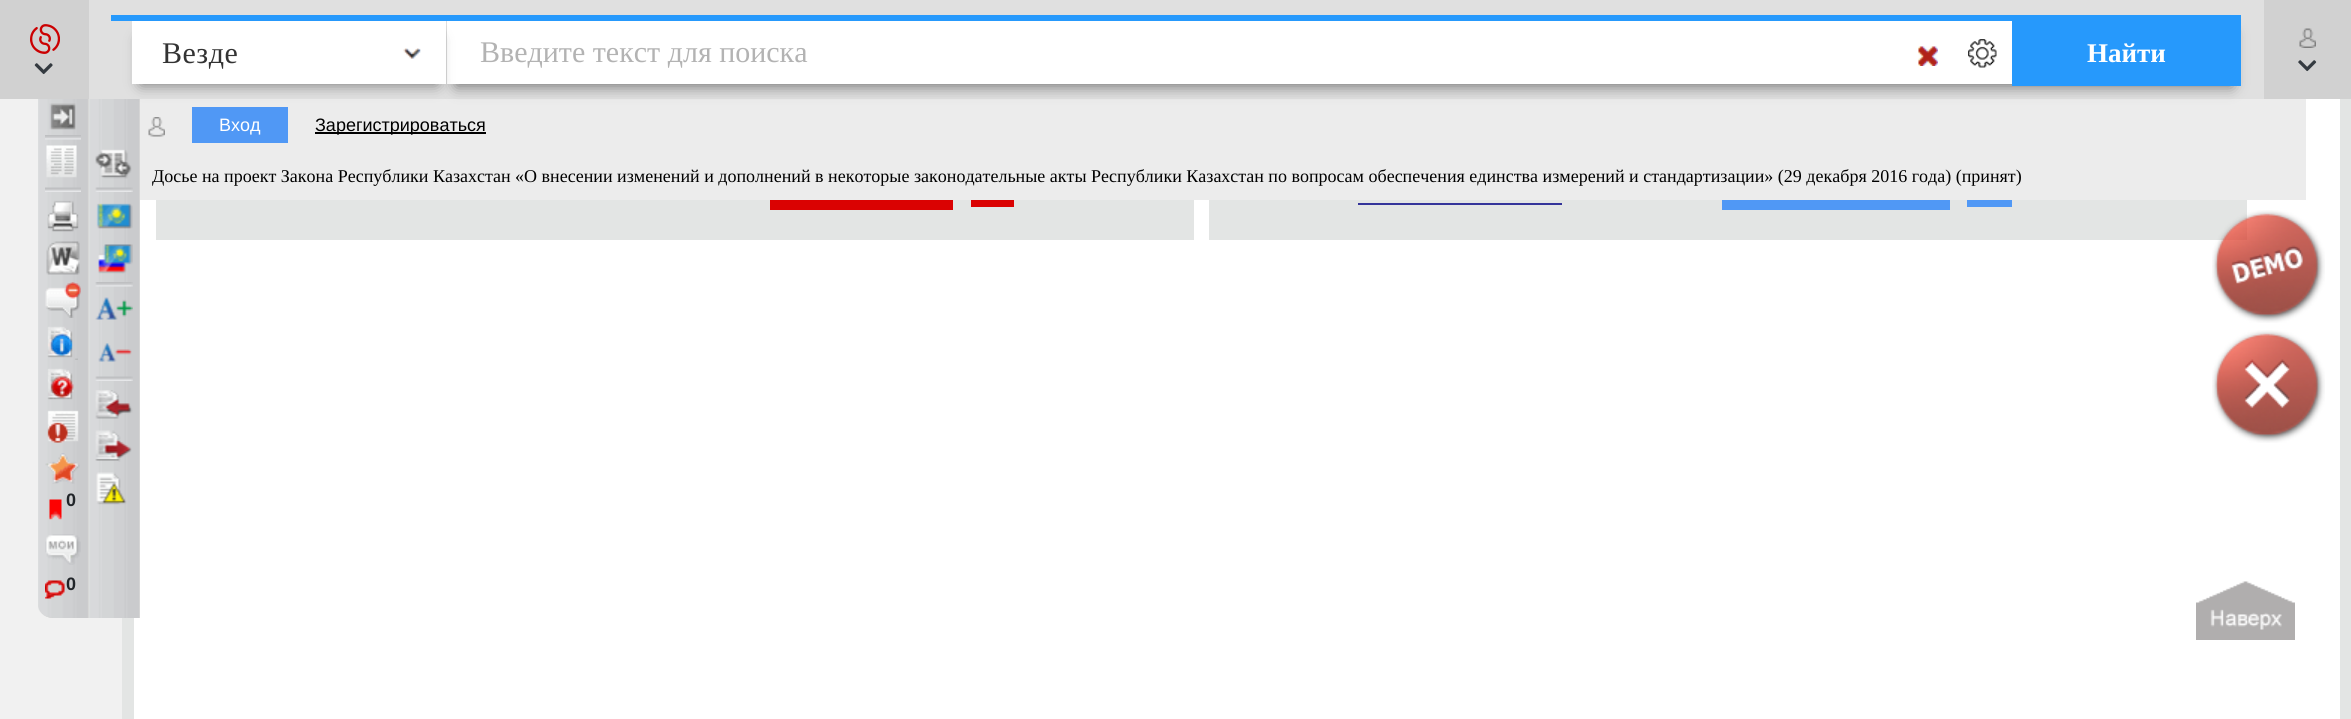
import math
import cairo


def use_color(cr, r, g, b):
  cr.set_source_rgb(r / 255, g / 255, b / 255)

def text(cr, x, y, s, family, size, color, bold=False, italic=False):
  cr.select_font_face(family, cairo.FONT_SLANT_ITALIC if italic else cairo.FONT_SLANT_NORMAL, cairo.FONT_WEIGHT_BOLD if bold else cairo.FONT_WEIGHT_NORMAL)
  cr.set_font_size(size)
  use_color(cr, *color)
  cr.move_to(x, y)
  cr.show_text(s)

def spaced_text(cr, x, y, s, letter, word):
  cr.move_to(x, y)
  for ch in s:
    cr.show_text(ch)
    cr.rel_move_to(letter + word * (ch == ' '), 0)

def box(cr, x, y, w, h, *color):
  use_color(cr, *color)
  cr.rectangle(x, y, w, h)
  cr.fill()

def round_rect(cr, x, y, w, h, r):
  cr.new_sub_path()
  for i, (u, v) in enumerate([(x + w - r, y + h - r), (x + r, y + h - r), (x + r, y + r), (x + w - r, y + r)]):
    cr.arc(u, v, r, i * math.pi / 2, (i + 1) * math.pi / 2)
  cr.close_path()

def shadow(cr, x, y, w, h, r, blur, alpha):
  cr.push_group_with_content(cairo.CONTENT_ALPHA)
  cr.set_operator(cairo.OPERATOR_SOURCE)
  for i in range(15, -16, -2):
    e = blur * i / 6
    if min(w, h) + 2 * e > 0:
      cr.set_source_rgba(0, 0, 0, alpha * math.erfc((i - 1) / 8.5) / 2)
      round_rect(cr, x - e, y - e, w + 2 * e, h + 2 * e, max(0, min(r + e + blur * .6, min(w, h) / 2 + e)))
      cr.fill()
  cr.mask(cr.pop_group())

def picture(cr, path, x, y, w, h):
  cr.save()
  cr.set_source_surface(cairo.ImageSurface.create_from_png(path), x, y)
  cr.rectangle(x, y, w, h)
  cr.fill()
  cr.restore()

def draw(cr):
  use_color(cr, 241, 241, 241)
  cr.paint()
  box(cr, 134, 99, 2206, 620, 255, 255, 255)
  cr.rectangle(128, -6, 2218, 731)
  use_color(cr, 227, 229, 228)
  cr.set_line_width(12)
  cr.stroke()
  box(cr, 156, 200, 1038, 40, 227, 229, 228)
  box(cr, 770, 200, 183, 10, 218, 2, 2)
  box(cr, 971, 200, 43, 7, 218, 2, 2)
  box(cr, 1209, 200, 1038, 40, 227, 229, 228)
  box(cr, 1358, 203, 204, 2, 51, 51, 153)
  box(cr, 1722, 200, 228, 10, 80, 152, 245)
  box(cr, 1967, 200, 45, 7, 80, 152, 245)
  picture(cr, "img_01.png", 2212, 210, 113, 113)
  picture(cr, "img_02.png", 2212, 330, 113, 113)
  picture(cr, "img_03.png", 2196, 581, 99, 59)
  box(cr, 0, 0, 89, 99, 209, 209, 209)
  picture(cr, "img_04.png", 30, 24, 30, 30)
  picture(cr, "img_05.png", 34, 63, 19, 12)
  box(cr, 89, 0, 2175, 99, 224, 224, 224)
  box(cr, 140, 99, 2166, 101, 236, 236, 236)
  use_color(cr, 0, 0, 0)
  shadow(cr, 456, 33, 1776, 53, 0, 7.5, 0.5)
  box(cr, 111, 15, 2130, 6, 38, 153, 252)
  box(cr, 447, 21, 1565, 63, 255, 255, 255)
  box(cr, 192, 107, 96, 36, 80, 152, 245)
  box(cr, 139, 99, 1, 519, 209, 209, 207)
  cr.new_path()
  cr.move_to(38, 99)
  cr.line_to(89, 99)
  cr.line_to(89, 618)
  cr.line_to(53, 618)
  cr.curve_to(44.5, 618, 38, 611.5, 38, 603)
  cr.close_path()
  cr.fill()
  picture(cr, "img_27.png", 88, 99, 52, 519)
  use_color(cr, 0, 0, 0)
  shadow(cr, 141, 39, 296, 45, 0, 7.5, 0.5)
  box(cr, 132, 21, 314, 63, 255, 255, 255)
  picture(cr, "img_06.png", 403, 48, 18, 11)
  picture(cr, "img_07.png", 1918, 46, 20, 20)
  picture(cr, "img_08.png", 1968, 39, 29, 29)
  box(cr, 2012, 21, 229, 65, 38, 153, 252)
  box(cr, 2264, 0, 87, 99, 209, 209, 209)
  picture(cr, "img_09.png", 2299, 28, 17, 20)
  picture(cr, "img_10.png", 2298, 60, 19, 12)
  picture(cr, "img_11.png", 148, 117, 17, 20)
  box(cr, 315, 132, 171, 2, 0, 0, 0)
  picture(cr, "img_12.png", 38, 99, 50, 519)
  picture(cr, "img_13.png", 49, 103, 27, 27)
  picture(cr, "img_14.png", 45, 135, 36, 5)
  picture(cr, "img_15.png", 46, 145, 31, 33)
  picture(cr, "img_16.png", 45, 187, 36, 5)
  picture(cr, "img_17.png", 47, 200, 32, 32)
  picture(cr, "img_18.png", 46, 241, 34, 34)
  picture(cr, "img_19.png", 45, 282, 36, 36)
  picture(cr, "img_20.png", 47, 326, 31, 34)
  picture(cr, "img_21.png", 47, 368, 27, 32)
  picture(cr, "img_22.png", 47, 410, 32, 33)
  picture(cr, "img_23.png", 45, 453, 35, 31)
  picture(cr, "img_24.png", 49, 499, 13, 21)
  picture(cr, "img_25.png", 45, 534, 36, 31)
  picture(cr, "img_26.png", 45, 580, 20, 19)
  picture(cr, "img_28.png", 95, 149, 37, 30)
  picture(cr, "img_29.png", 95, 187, 38, 5)
  picture(cr, "img_30.png", 96, 203, 37, 26)
  picture(cr, "img_31.png", 98, 244, 35, 30)
  picture(cr, "img_32.png", 95, 282, 38, 5)
  picture(cr, "img_33.png", 95, 297, 38, 23)
  picture(cr, "img_34.png", 98, 343, 34, 19)
  picture(cr, "img_29.png", 95, 376, 38, 5)
  picture(cr, "img_35.png", 95, 390, 38, 29)
  picture(cr, "img_36.png", 95, 430, 37, 32)
  picture(cr, "img_37.png", 96, 472, 31, 33)
  cr.select_font_face("Liberation Serif")
  cr.set_font_size(30)
  use_color(cr, 51, 51, 51)
  spaced_text(cr, 162, 63, "Везде", 0.5, 0)
  text(cr, 480, 62, "Введите текст для поиска", "Liberation Serif", 30, (179, 179, 179))
  text(cr, 2087, 62, "Найти", "Liberation Serif", 27, (255, 255, 255), bold=True)
  text(cr, 219, 131, "Вход", "Liberation Sans", 18, (255, 255, 255))
  text(cr, 315, 131, "Зарегистрироваться", "Liberation Sans", 18, (0, 0, 0))
  text(cr, 152, 182, "Досье на проект Закона Республики Казахстан «О внесении изменений и дополнений в некоторые законодательные акты Республики Казахстан по вопросам обеспечения единства измерений и стандартизации» (29 декабря 2016 года) (принят)", "Liberation Serif", 18, (0, 0, 0))
  text(cr, 66, 506, "0", "Liberation Sans", 18, (33, 37, 41), bold=True)
  text(cr, 66, 590, "0", "Liberation Sans", 18, (33, 37, 41), bold=True)


surface = cairo.ImageSurface(cairo.FORMAT_RGB24, 2351, 719)
cr = cairo.Context(surface)
options = cairo.FontOptions()
options.set_hint_metrics(cairo.HINT_METRICS_OFF)
options.set_hint_style(cairo.HINT_STYLE_NONE)
cr.set_font_options(options)
cr.set_miter_limit(4)
draw(cr)
surface.write_to_png("out.png")
